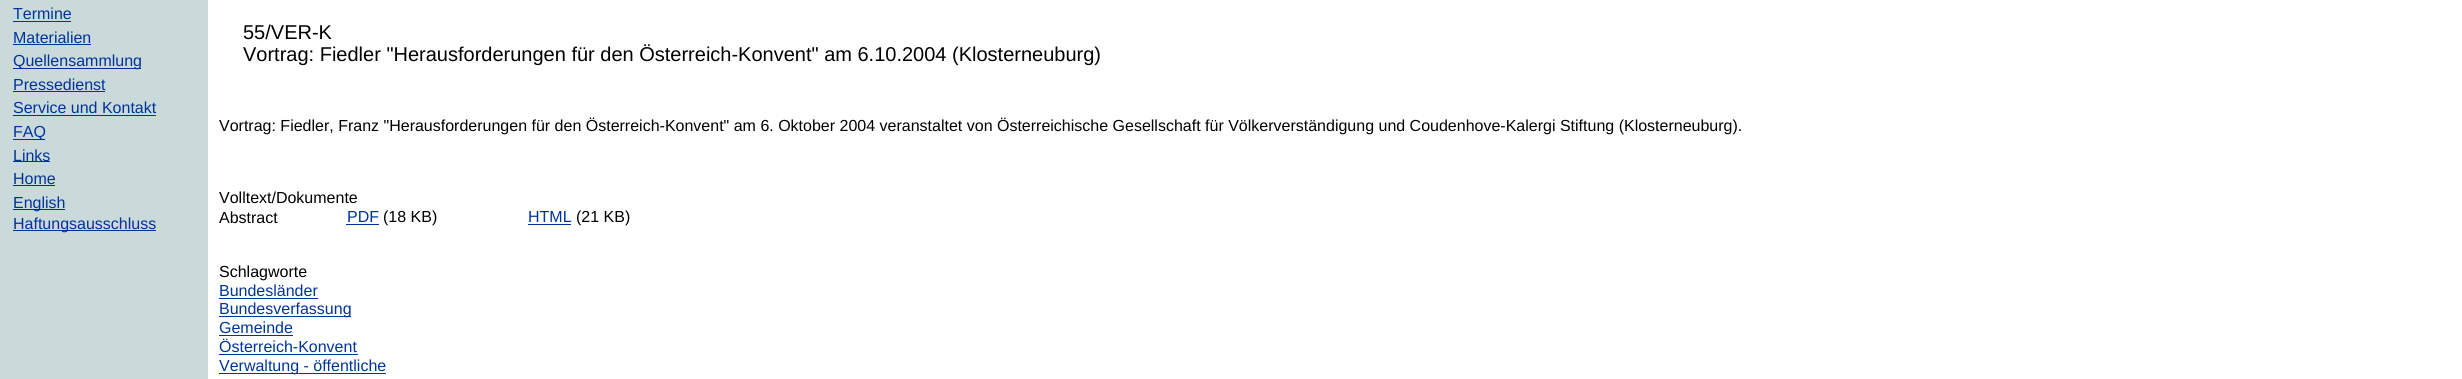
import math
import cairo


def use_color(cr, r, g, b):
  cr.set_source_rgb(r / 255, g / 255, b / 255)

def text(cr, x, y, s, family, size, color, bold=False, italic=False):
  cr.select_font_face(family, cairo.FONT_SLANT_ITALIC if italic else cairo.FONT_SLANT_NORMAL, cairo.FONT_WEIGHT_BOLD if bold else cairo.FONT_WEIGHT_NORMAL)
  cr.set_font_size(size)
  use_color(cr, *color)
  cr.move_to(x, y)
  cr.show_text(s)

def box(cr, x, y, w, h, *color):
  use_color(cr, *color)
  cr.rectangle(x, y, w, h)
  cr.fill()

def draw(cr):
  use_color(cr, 202, 217, 217)
  cr.paint()
  box(cr, 13, 21, 58, 1, 0, 51, 153)
  box(cr, 13, 44, 78, 1, 0, 51, 153)
  box(cr, 13, 68, 128, 1, 0, 51, 153)
  box(cr, 13, 91, 92, 1, 0, 51, 153)
  box(cr, 13, 115, 143, 1, 0, 51, 153)
  box(cr, 13, 139, 32, 1, 0, 51, 153)
  box(cr, 13, 161, 37, 1, 0, 51, 153)
  box(cr, 13, 185, 42, 1, 0, 51, 153)
  box(cr, 13, 209, 52, 1, 0, 51, 153)
  box(cr, 13, 230, 143, 1, 0, 51, 153)
  box(cr, 208, 0, 2254, 379, 255, 255, 255)
  box(cr, 346, 224, 33, 1, 0, 51, 153)
  box(cr, 528, 224, 43, 1, 0, 51, 153)
  box(cr, 219, 298, 99, 1, 0, 51, 153)
  box(cr, 219, 316, 132, 1, 0, 51, 153)
  box(cr, 219, 335, 74, 1, 0, 51, 153)
  box(cr, 219, 354, 139, 1, 0, 51, 153)
  box(cr, 219, 373, 167, 1, 0, 51, 153)
  text(cr, 13, 19, "Termine", "Liberation Sans", 16, (0, 51, 153))
  text(cr, 13, 43, "Materialien", "Liberation Sans", 16, (0, 51, 153))
  text(cr, 13, 66, "Quellensammlung", "Liberation Sans", 16, (0, 51, 153))
  text(cr, 13, 90, "Pressedienst", "Liberation Sans", 16, (0, 51, 153))
  text(cr, 13, 113, "Service und Kontakt", "Liberation Sans", 16, (0, 51, 153))
  text(cr, 13, 137, "FAQ", "Liberation Sans", 16, (0, 51, 153))
  text(cr, 13, 161, "Links", "Liberation Sans", 16, (0, 51, 153))
  text(cr, 13, 184, "Home", "Liberation Sans", 16, (0, 51, 153))
  text(cr, 13, 208, "English", "Liberation Sans", 16, (0, 51, 153))
  text(cr, 13, 229, "Haftungsausschluss", "Liberation Sans", 16, (0, 51, 153))
  text(cr, 243, 39, "55/VER-K", "Liberation Sans", 20, (0, 0, 0))
  text(cr, 243, 61, "Vortrag: Fiedler \"Herausforderungen für den Österreich-Konvent\" am 6.10.2004 (Klosterneuburg)", "Liberation Sans", 20, (0, 0, 0))
  text(cr, 219, 131, "Vortrag: Fiedler, Franz \"Herausforderungen für den Österreich-Konvent\" am 6. Oktober 2004 veranstaltet von Österreichische Gesellschaft für Völkerverständigung und Coudenhove-Kalergi Stiftung (Klosterneuburg).", "Liberation Sans", 16, (0, 0, 0))
  text(cr, 219, 203, "Volltext/Dokumente", "Liberation Sans", 16, (0, 0, 0))
  text(cr, 219, 223, "Abstract", "Liberation Sans", 16, (0, 0, 0))
  text(cr, 347, 222, "PDF", "Liberation Sans", 16, (0, 51, 153))
  text(cr, 383, 222, "(18 KB)", "Liberation Sans", 16, (0, 0, 0))
  text(cr, 528, 222, "HTML", "Liberation Sans", 16, (0, 51, 153))
  text(cr, 576, 222, "(21 KB)", "Liberation Sans", 16, (0, 0, 0))
  text(cr, 219, 277, "Schlagworte", "Liberation Sans", 16, (0, 0, 0))
  text(cr, 219, 296, "Bundesländer", "Liberation Sans", 16, (0, 51, 153))
  text(cr, 219, 314, "Bundesverfassung", "Liberation Sans", 16, (0, 51, 153))
  text(cr, 219, 333, "Gemeinde", "Liberation Sans", 16, (0, 51, 153))
  text(cr, 219, 352, "Österreich-Konvent", "Liberation Sans", 16, (0, 51, 153))
  text(cr, 219, 371, "Verwaltung - öffentliche", "Liberation Sans", 16, (0, 51, 153))


surface = cairo.ImageSurface(cairo.FORMAT_RGB24, 2462, 379)
cr = cairo.Context(surface)
options = cairo.FontOptions()
options.set_hint_metrics(cairo.HINT_METRICS_OFF)
options.set_hint_style(cairo.HINT_STYLE_NONE)
cr.set_font_options(options)
cr.set_miter_limit(4)
draw(cr)
surface.write_to_png("out.png")
